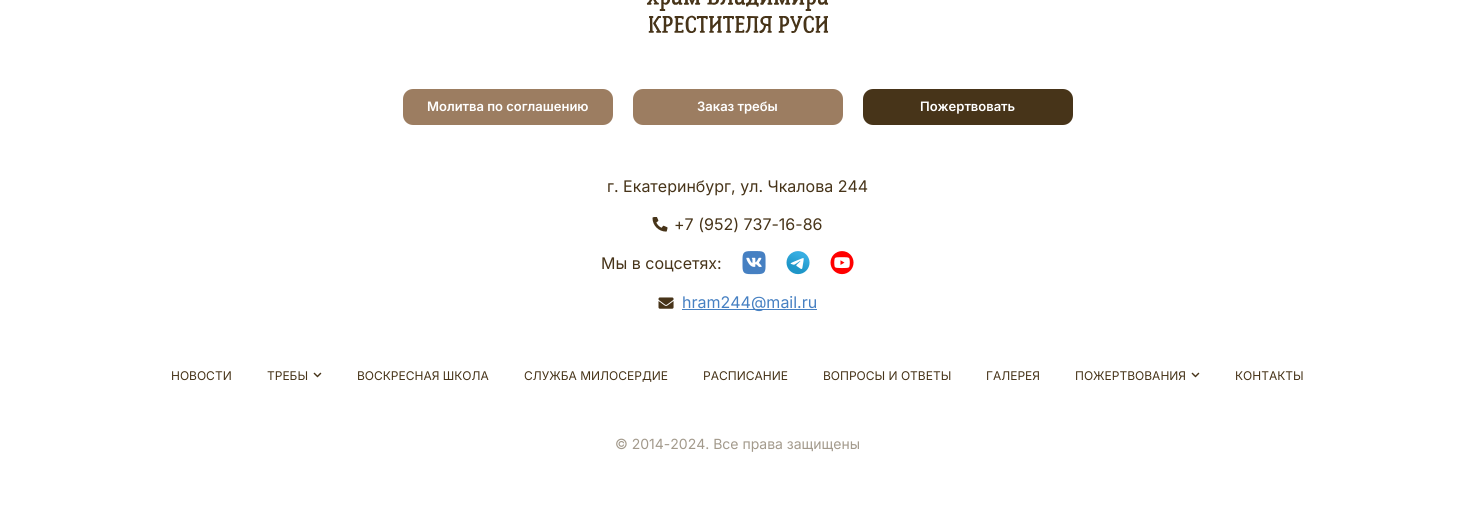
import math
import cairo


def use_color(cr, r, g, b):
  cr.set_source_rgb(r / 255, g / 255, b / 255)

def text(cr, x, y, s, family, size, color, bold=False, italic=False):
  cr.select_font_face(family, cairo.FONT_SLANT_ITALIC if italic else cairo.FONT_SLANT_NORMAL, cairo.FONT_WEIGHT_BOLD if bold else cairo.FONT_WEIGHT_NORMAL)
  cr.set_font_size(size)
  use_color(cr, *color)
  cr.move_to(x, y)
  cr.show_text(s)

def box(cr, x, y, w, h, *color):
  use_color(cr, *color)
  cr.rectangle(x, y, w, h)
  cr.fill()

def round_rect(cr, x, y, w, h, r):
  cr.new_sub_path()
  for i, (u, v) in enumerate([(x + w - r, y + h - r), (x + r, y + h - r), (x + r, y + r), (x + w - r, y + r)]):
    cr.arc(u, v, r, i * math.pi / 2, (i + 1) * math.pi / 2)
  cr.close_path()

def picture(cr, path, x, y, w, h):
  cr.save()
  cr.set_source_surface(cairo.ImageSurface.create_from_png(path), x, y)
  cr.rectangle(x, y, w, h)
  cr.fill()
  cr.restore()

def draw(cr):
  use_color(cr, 255, 255, 255)
  cr.paint()
  picture(cr, "img_01.png", 646, 0, 183, 33)
  use_color(cr, 156, 125, 97)
  round_rect(cr, 403, 89, 210, 36, 10)
  cr.fill()
  round_rect(cr, 633, 89, 210, 36, 10)
  cr.fill()
  use_color(cr, 71, 52, 25)
  round_rect(cr, 863, 89, 210, 36, 10)
  cr.fill()
  picture(cr, "img_02.png", 652, 217, 16, 15)
  picture(cr, "img_03.png", 742, 251, 24, 24)
  picture(cr, "img_04.png", 786, 251, 24, 24)
  picture(cr, "img_05.png", 830, 251, 24, 24)
  picture(cr, "img_06.png", 658, 297, 16, 12)
  box(cr, 682, 309, 135, 1, 70, 128, 194)
  picture(cr, "img_07.png", 313, 372, 9, 6)
  picture(cr, "img_07.png", 1191, 372, 9, 6)
  text(cr, 427, 111, "Молитва по соглашению", "Inter SemiBold", 13, (255, 255, 255))
  text(cr, 697, 111, "Заказ требы", "Inter SemiBold", 13, (255, 255, 255))
  text(cr, 920, 111, "Пожертвовать", "Inter SemiBold", 13, (255, 255, 255))
  text(cr, 607, 192, "г. Екатеринбург, ул. Чкалова 244", "Inter", 16, (71, 52, 25))
  text(cr, 674, 230, "+7 (952) 737-16-86", "Inter", 16, (71, 52, 25))
  text(cr, 601, 269, "Мы в соцсетях:", "Inter", 16, (71, 52, 25))
  text(cr, 682, 308, "hram244@mail.ru", "Inter", 16, (70, 128, 194))
  text(cr, 171, 380, "НОВОСТИ", "Inter", 12, (71, 52, 25))
  text(cr, 267, 380, "ТРЕБЫ", "Inter", 12, (71, 52, 25))
  text(cr, 357, 380, "ВОСКРЕСНАЯ ШКОЛА", "Inter", 12, (71, 52, 25))
  text(cr, 524, 380, "СЛУЖБА МИЛОСЕРДИЕ", "Inter", 12, (71, 52, 25))
  text(cr, 703, 380, "РАСПИСАНИЕ", "Inter", 12, (71, 52, 25))
  text(cr, 823, 380, "ВОПРОСЫ И ОТВЕТЫ", "Inter", 12, (71, 52, 25))
  text(cr, 986, 380, "ГАЛЕРЕЯ", "Inter", 12, (71, 52, 25))
  text(cr, 1075, 380, "ПОЖЕРТВОВАНИЯ", "Inter", 12, (71, 52, 25))
  text(cr, 1235, 380, "КОНТАКТЫ", "Inter", 12, (71, 52, 25))
  text(cr, 615, 449, "© 2014-2024. Все права защищены", "Inter", 14, (163, 154, 140))


surface = cairo.ImageSurface(cairo.FORMAT_RGB24, 1475, 516)
cr = cairo.Context(surface)
options = cairo.FontOptions()
options.set_hint_metrics(cairo.HINT_METRICS_OFF)
options.set_hint_style(cairo.HINT_STYLE_NONE)
cr.set_font_options(options)
cr.set_miter_limit(4)
draw(cr)
surface.write_to_png("out.png")
